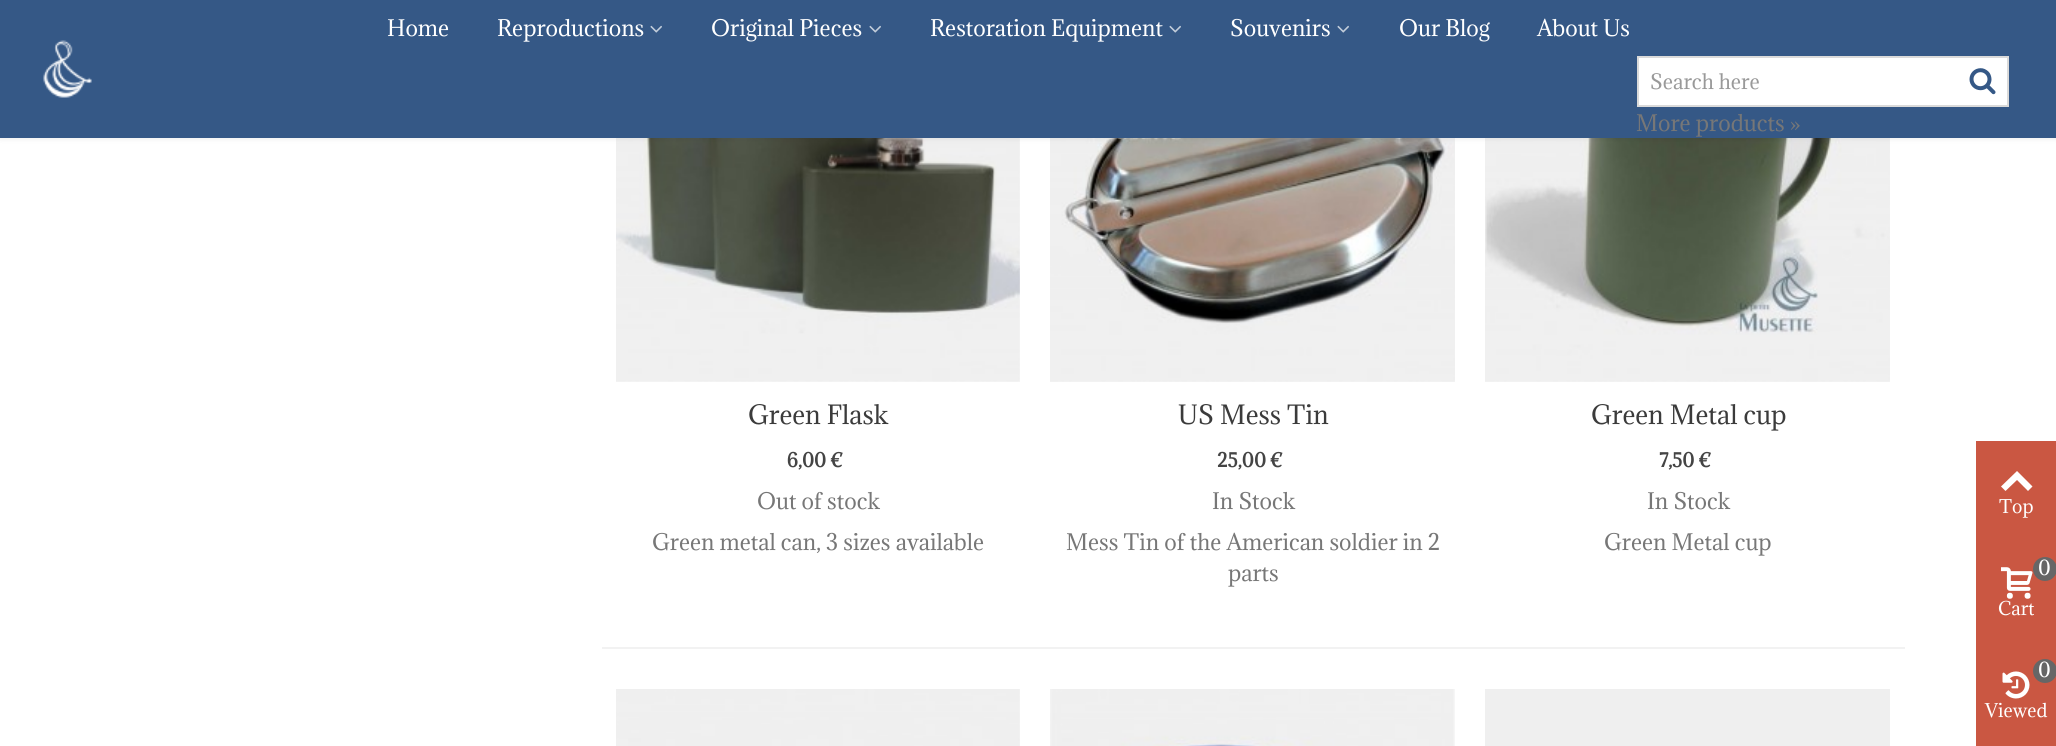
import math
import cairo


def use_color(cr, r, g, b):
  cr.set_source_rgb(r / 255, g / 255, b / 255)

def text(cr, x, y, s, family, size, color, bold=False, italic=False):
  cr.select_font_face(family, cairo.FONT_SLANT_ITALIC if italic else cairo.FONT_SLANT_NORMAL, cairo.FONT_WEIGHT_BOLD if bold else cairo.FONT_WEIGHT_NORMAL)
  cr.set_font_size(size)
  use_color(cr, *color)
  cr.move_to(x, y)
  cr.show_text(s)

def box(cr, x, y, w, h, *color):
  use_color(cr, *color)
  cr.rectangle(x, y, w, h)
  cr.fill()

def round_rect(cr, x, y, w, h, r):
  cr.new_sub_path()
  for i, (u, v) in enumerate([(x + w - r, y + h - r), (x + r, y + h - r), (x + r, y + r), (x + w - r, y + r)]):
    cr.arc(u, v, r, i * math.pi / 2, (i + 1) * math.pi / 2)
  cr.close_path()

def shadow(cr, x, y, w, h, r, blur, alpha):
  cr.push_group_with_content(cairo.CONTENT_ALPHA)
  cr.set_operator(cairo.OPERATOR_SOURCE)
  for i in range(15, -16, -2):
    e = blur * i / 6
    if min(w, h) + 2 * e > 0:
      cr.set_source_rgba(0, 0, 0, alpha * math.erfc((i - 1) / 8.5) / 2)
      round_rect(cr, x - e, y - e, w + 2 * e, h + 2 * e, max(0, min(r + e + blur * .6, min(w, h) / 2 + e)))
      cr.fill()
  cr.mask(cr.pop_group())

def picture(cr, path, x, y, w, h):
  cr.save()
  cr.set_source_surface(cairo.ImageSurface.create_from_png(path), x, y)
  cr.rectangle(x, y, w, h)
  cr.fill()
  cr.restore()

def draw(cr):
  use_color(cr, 255, 255, 255)
  cr.paint()
  picture(cr, "img_04.png", 616, 138, 404, 244)
  picture(cr, "img_05.png", 1050, 138, 405, 244)
  picture(cr, "img_06.png", 1485, 138, 405, 244)
  use_color(cr, 0, 0, 0)
  shadow(cr, 0, 0, 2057, 138, 0, 3, 0.1)
  box(cr, 0, 0, 2056, 138, 53, 88, 134)
  picture(cr, "img_01.png", 43, 40, 49, 58)
  picture(cr, "img_02.png", 650, 25, 12, 8)
  picture(cr, "img_02.png", 869, 25, 12, 8)
  picture(cr, "img_02.png", 1169, 25, 12, 8)
  picture(cr, "img_02.png", 1337, 25, 12, 8)
  use_color(cr, 255, 255, 255)
  cr.rectangle(1638, 57, 370, 49)
  cr.fill_preserve()
  use_color(cr, 218, 218, 218)
  cr.stroke()
  picture(cr, "img_03.png", 1969, 68, 27, 27)
  box(cr, 602, 647, 1303, 2, 242, 242, 242)
  picture(cr, "img_07.png", 616, 689, 404, 57)
  picture(cr, "img_08.png", 1050, 689, 405, 57)
  box(cr, 1485, 689, 405, 57, 239, 239, 239)
  box(cr, 1976, 441, 80, 305, 202, 87, 66)
  use_color(cr, 255, 255, 255)
  cr.new_path()
  cr.move_to(2001, 486.5)
  cr.line_to(2017, 471)
  cr.line_to(2032.5, 486.5)
  cr.line_to(2028, 491)
  cr.line_to(2017, 480)
  cr.line_to(2005.5, 491)
  cr.close_path()
  cr.fill()
  picture(cr, "img_09.png", 2001, 567, 32, 32)
  use_color(cr, 102, 102, 102)
  cr.arc(2045, 569, 12, 0, 2 * math.pi)
  cr.fill()
  picture(cr, "img_10.png", 2002, 671, 28, 28)
  cr.arc(2045, 671, 12, 0, 2 * math.pi)
  cr.fill()
  text(cr, 387, 36, "Home", "Adamina", 21, (255, 255, 255))
  text(cr, 497, 36, "Reproductions", "Adamina", 21, (255, 255, 255))
  text(cr, 711, 36, "Original Pieces", "Adamina", 21, (255, 255, 255))
  text(cr, 930, 36, "Restoration Equipment", "Adamina", 21, (255, 255, 255))
  text(cr, 1230, 36, "Souvenirs", "Adamina", 21, (255, 255, 255))
  text(cr, 1399, 36, "Our Blog", "Adamina", 21, (255, 255, 255))
  text(cr, 1537, 36, "About Us", "Adamina", 21, (255, 255, 255))
  text(cr, 1650, 89, "Search here", "Adamina", 19.5, (153, 153, 153))
  text(cr, 1636, 131, "More products »", "Adamina", 21, (119, 119, 119))
  text(cr, 748, 424, "Green Flask", "Adamina", 24.5, (59, 59, 59))
  text(cr, 787, 467, "6,00 €", "Adamina", 18, (68, 68, 68), bold=True)
  text(cr, 757, 509, "Out of stock", "Adamina", 21, (119, 119, 119))
  text(cr, 652, 550, "Green metal can, 3 sizes available", "Adamina", 21, (119, 119, 119))
  text(cr, 1178, 424, "US Mess Tin", "Adamina", 24.5, (59, 59, 59))
  text(cr, 1217, 467, "25,00 €", "Adamina", 18, (68, 68, 68), bold=True)
  text(cr, 1212, 509, "In Stock", "Adamina", 21, (119, 119, 119))
  text(cr, 1066, 550, "Mess Tin of the American soldier in 2", "Adamina", 21, (119, 119, 119))
  text(cr, 1228, 581, "parts", "Adamina", 21, (119, 119, 119))
  text(cr, 1591, 424, "Green Metal cup", "Adamina", 24.5, (59, 59, 59))
  text(cr, 1659, 467, "7,50 €", "Adamina", 18, (68, 68, 68), bold=True)
  text(cr, 1647, 509, "In Stock", "Adamina", 21, (119, 119, 119))
  text(cr, 1604, 550, "Green Metal cup", "Adamina", 21, (119, 119, 119))
  text(cr, 1999, 513, "Top", "Adamina", 17.5, (255, 255, 255))
  text(cr, 2038, 575, "0", "Adamina", 19, (255, 255, 255))
  text(cr, 1998, 615, "Cart", "Adamina", 17.5, (255, 255, 255))
  text(cr, 2038, 677, "0", "Adamina", 19, (255, 255, 255))
  text(cr, 1985, 717, "Viewed", "Adamina", 17.5, (255, 255, 255))


surface = cairo.ImageSurface(cairo.FORMAT_RGB24, 2056, 746)
cr = cairo.Context(surface)
options = cairo.FontOptions()
options.set_hint_metrics(cairo.HINT_METRICS_OFF)
options.set_hint_style(cairo.HINT_STYLE_NONE)
cr.set_font_options(options)
cr.set_miter_limit(4)
draw(cr)
surface.write_to_png("out.png")
